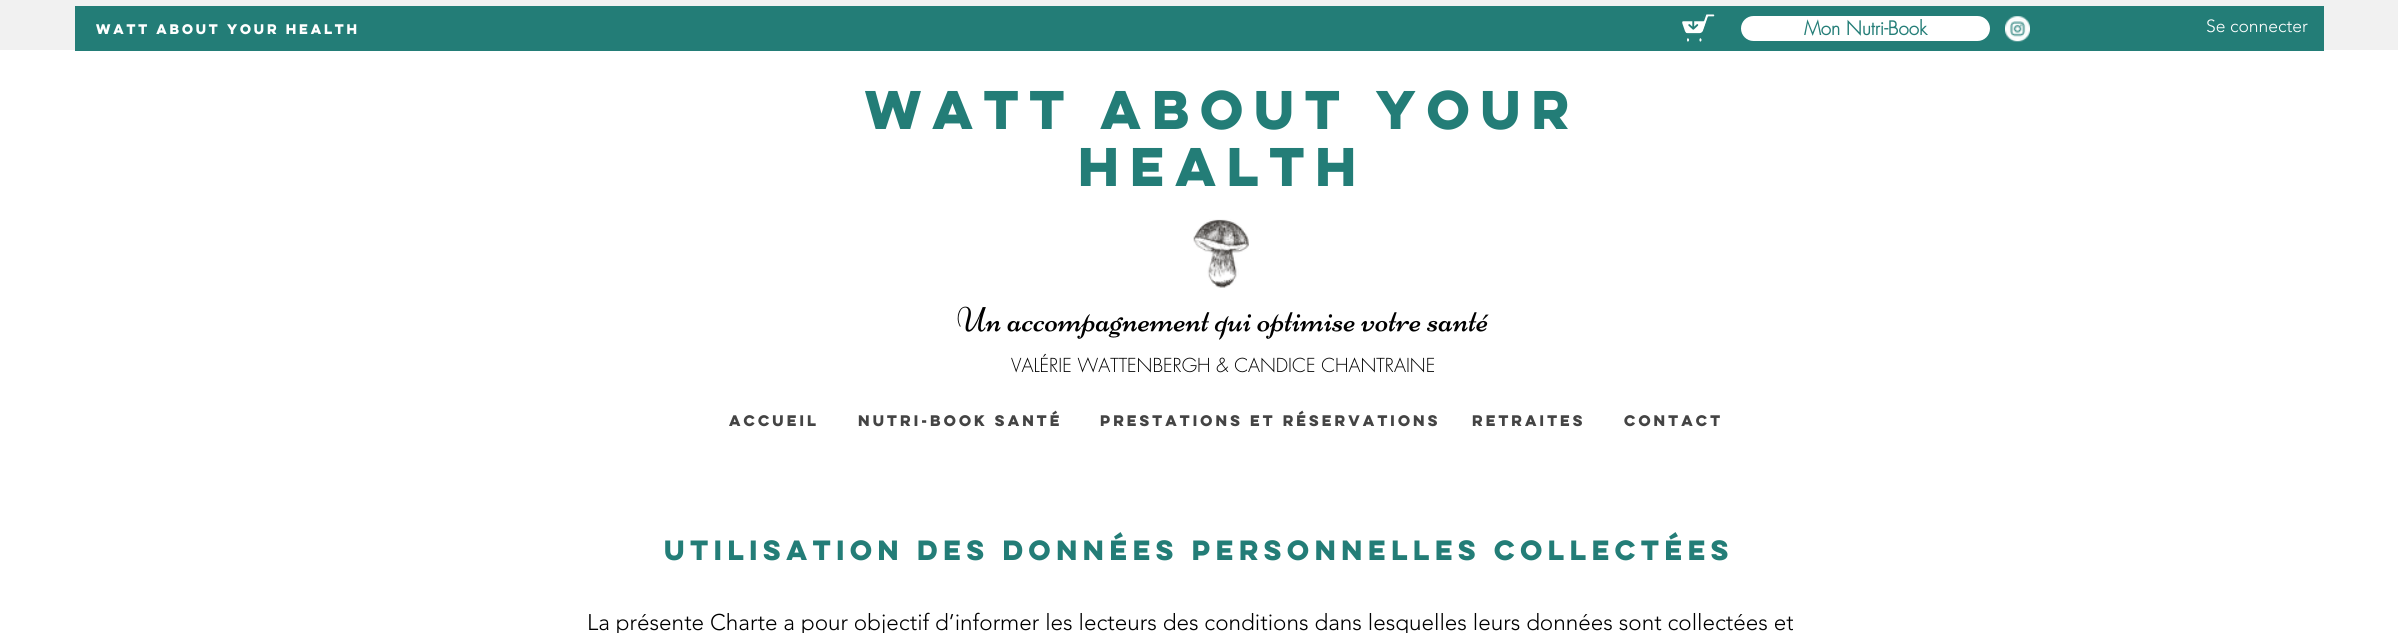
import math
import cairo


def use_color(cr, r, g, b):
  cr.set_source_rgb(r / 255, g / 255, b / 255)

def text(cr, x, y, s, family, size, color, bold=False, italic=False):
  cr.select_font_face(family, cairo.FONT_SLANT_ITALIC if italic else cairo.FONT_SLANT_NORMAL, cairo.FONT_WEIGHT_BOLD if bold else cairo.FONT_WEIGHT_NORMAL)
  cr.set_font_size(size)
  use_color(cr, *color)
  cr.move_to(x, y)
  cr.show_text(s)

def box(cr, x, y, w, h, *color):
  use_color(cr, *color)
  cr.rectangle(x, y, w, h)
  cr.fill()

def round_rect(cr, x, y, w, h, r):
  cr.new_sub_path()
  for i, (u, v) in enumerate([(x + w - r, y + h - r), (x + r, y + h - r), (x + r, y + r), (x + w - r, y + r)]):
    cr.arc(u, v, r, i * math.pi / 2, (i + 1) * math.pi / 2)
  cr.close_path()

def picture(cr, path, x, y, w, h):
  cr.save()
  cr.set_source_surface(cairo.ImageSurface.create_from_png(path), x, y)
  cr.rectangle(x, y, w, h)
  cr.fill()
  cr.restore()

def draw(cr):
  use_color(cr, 255, 255, 255)
  cr.paint()
  box(cr, 0, 0, 2398, 50, 241, 241, 241)
  box(cr, 75, 6, 2249, 45, 35, 125, 119)
  picture(cr, "img_01.png", 1682, 14, 33, 28)
  use_color(cr, 255, 255, 255)
  round_rect(cr, 1741, 16, 249, 25, 12.5)
  cr.fill()
  picture(cr, "img_02.png", 2005, 16, 25, 26)
  picture(cr, "img_03.png", 1193, 219, 56, 69)
  picture(cr, "img_04.png", 957, 306, 532, 34)
  text(cr, 96, 34, "WATT ABOUT YOur health", "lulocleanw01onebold", 12.5, (255, 255, 255), bold=True)
  text(cr, 1804, 35, "Mon Nutri-Book", "futura", 18.75, (35, 125, 119), bold=True)
  text(cr, 2206, 32, "Se connecter", "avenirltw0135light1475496 Light", 17.5, (255, 255, 255))
  text(cr, 865, 129, "WATT ABOUT YOur", "lulocleanw01onebold", 48.75, (35, 125, 119), bold=True)
  text(cr, 1078, 186, "health", "lulocleanw01onebold", 48.75, (35, 125, 119), bold=True)
  text(cr, 1011, 372, "VALÉRIE WATTENBERGH & CANDICE CHANTRAINE", "futura Light", 18.75, (0, 0, 0))
  text(cr, 729, 426, "Accueil", "lulocleanw01onebold", 13.75, (68, 68, 68), bold=True)
  text(cr, 858, 426, "Nutri-Book santé", "lulocleanw01onebold", 13.75, (68, 68, 68), bold=True)
  text(cr, 1100, 426, "Prestations et réservations", "lulocleanw01onebold", 13.75, (68, 68, 68), bold=True)
  text(cr, 1472, 426, "Retraites", "lulocleanw01onebold", 13.75, (68, 68, 68), bold=True)
  text(cr, 1624, 426, "Contact", "lulocleanw01onebold", 13.75, (68, 68, 68), bold=True)
  text(cr, 664, 560, "Utilisation des données personnelles collectées", "lulocleanw01onebold", 25, (35, 125, 119), bold=True)
  text(cr, 587, 630, "La présente Charte a pour objectif d’informer les lecteurs des conditions dans lesquelles leurs données sont collectées et", "avenirltw0135light1475496 Light", 22.5, (0, 0, 0))


surface = cairo.ImageSurface(cairo.FORMAT_RGB24, 2398, 633)
cr = cairo.Context(surface)
options = cairo.FontOptions()
options.set_hint_metrics(cairo.HINT_METRICS_OFF)
options.set_hint_style(cairo.HINT_STYLE_NONE)
cr.set_font_options(options)
cr.set_miter_limit(4)
draw(cr)
surface.write_to_png("out.png")
